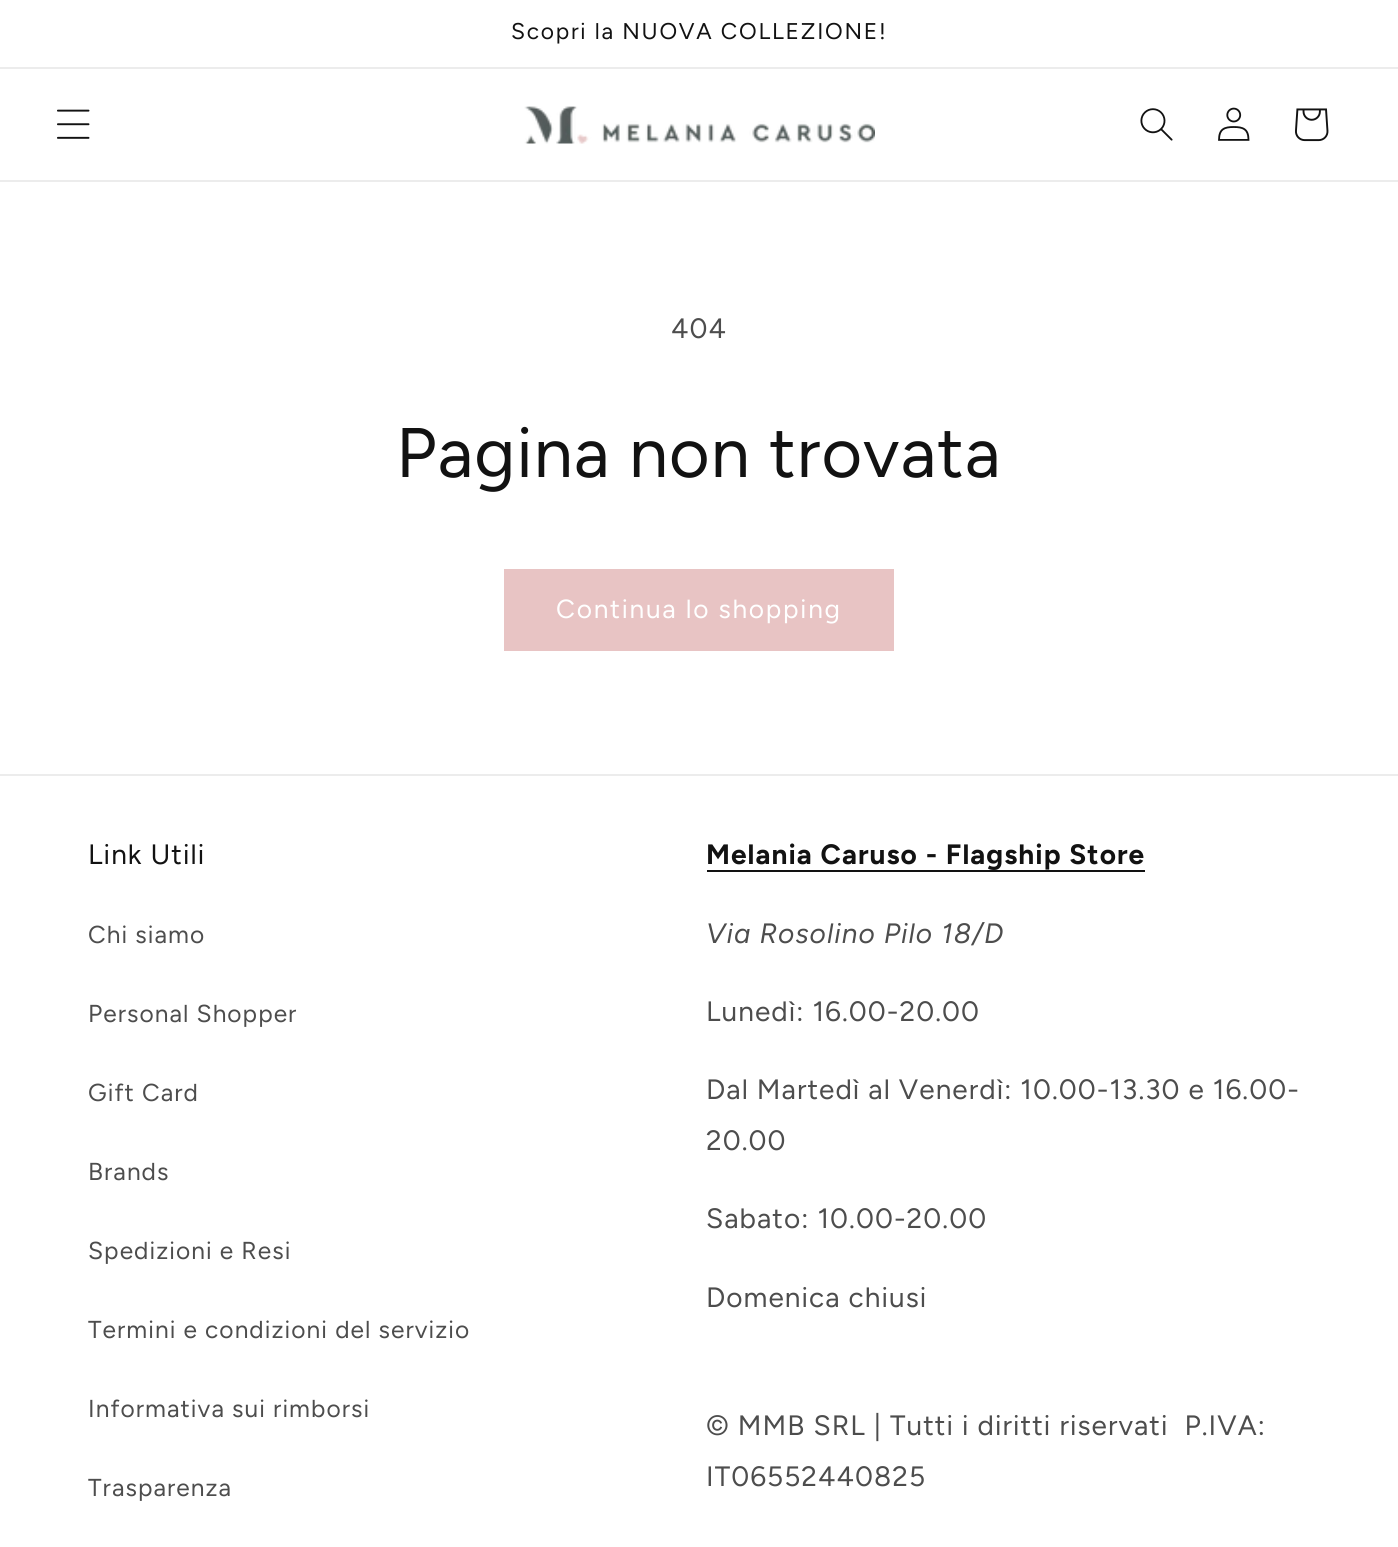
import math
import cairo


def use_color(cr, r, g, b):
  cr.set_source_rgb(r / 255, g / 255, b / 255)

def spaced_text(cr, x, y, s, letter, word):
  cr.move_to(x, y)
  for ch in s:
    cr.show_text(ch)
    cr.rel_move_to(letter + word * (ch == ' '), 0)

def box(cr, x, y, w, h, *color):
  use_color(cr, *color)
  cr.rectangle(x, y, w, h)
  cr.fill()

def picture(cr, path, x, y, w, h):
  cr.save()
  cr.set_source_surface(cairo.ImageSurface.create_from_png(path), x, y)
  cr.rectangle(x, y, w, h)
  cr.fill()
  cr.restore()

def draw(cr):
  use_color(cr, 255, 255, 255)
  cr.paint()
  box(cr, 0, 67, 1398, 2, 236, 236, 236)
  box(cr, 0, 180, 1398, 2, 236, 236, 236)
  picture(cr, "img_01.png", 57, 109, 33, 30)
  picture(cr, "img_02.png", 524, 106, 351, 38)
  picture(cr, "img_03.png", 1140, 108, 33, 33)
  picture(cr, "img_04.png", 1218, 107, 32, 34)
  picture(cr, "img_05.png", 1295, 108, 34, 34)
  box(cr, 504, 569, 390, 82, 232, 196, 196)
  box(cr, 0, 774, 1398, 2, 236, 236, 236)
  box(cr, 707, 870, 438, 2, 18, 18, 18)
  cr.select_font_face("Figtree")
  cr.set_font_size(22.75)
  spaced_text(cr, 511, 39, "Scopri la NUOVA COLLEZIONE!", 1.75, 0)
  cr.set_font_size(28)
  use_color(cr, 77, 77, 77)
  spaced_text(cr, 671, 338, "404", 1.05, 0)
  cr.set_font_size(70)
  use_color(cr, 18, 18, 18)
  spaced_text(cr, 396, 477, "Pagina non trovata", 1.05, 0)
  cr.set_font_size(26.25)
  use_color(cr, 255, 255, 255)
  spaced_text(cr, 556, 618, "Continua lo shopping", 1.75, 0)
  cr.set_font_size(28)
  use_color(cr, 18, 18, 18)
  spaced_text(cr, 88, 864, "Link Utili", 1.05, 0)
  cr.set_font_size(24.5)
  use_color(cr, 77, 77, 77)
  spaced_text(cr, 88, 943, "Chi siamo", 1.05, 0)
  spaced_text(cr, 88, 1022, "Personal Shopper", 1.05, 0)
  spaced_text(cr, 88, 1101, "Gift Card", 1.05, 0)
  spaced_text(cr, 88, 1180, "Brands", 1.05, 0)
  spaced_text(cr, 88, 1259, "Spedizioni e Resi", 1.05, 0)
  spaced_text(cr, 88, 1338, "Termini e condizioni del servizio", 1.05, 0)
  spaced_text(cr, 88, 1417, "Informativa sui rimborsi", 1.05, 0)
  spaced_text(cr, 88, 1496, "Trasparenza", 1.05, 0)
  cr.select_font_face("Figtree", cairo.FONT_SLANT_NORMAL, cairo.FONT_WEIGHT_BOLD)
  cr.set_font_size(28)
  use_color(cr, 18, 18, 18)
  spaced_text(cr, 706, 864, "Melania Caruso - Flagship Store", 1.05, 0)
  cr.select_font_face("Figtree", cairo.FONT_SLANT_ITALIC)
  use_color(cr, 77, 77, 77)
  spaced_text(cr, 706, 943, "Via Rosolino Pilo 18/D", 1.05, 0)
  cr.select_font_face("Figtree")
  spaced_text(cr, 706, 1021, "Lunedì: 16.00-20.00", 1.05, 0)
  spaced_text(cr, 706, 1099, "Dal Martedì al Venerdì: 10.00-13.30 e 16.00-", 1.05, 0)
  spaced_text(cr, 706, 1150, "20.00", 1.05, 0)
  spaced_text(cr, 706, 1228, "Sabato: 10.00-20.00", 1.05, 0)
  spaced_text(cr, 706, 1307, "Domenica chiusi", 1.05, 0)
  spaced_text(cr, 706, 1435, "© MMB SRL | Tutti i diritti riservati  P.IVA:", 1.05, 0)
  spaced_text(cr, 706, 1486, "IT06552440825", 1.05, 0)


surface = cairo.ImageSurface(cairo.FORMAT_RGB24, 1398, 1547)
cr = cairo.Context(surface)
options = cairo.FontOptions()
options.set_hint_metrics(cairo.HINT_METRICS_OFF)
options.set_hint_style(cairo.HINT_STYLE_NONE)
cr.set_font_options(options)
cr.set_miter_limit(4)
draw(cr)
surface.write_to_png("out.png")
